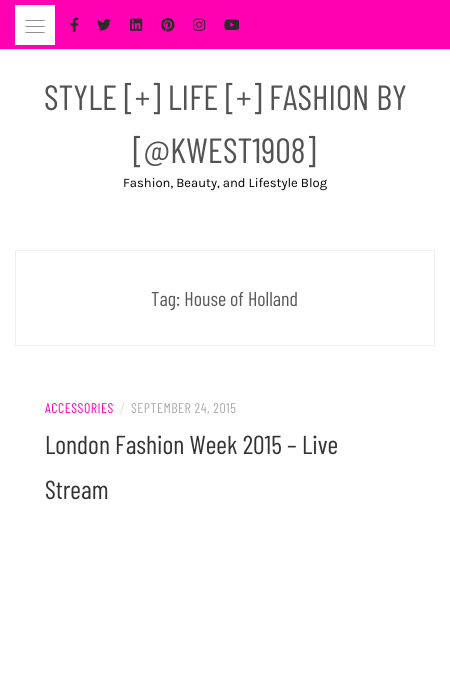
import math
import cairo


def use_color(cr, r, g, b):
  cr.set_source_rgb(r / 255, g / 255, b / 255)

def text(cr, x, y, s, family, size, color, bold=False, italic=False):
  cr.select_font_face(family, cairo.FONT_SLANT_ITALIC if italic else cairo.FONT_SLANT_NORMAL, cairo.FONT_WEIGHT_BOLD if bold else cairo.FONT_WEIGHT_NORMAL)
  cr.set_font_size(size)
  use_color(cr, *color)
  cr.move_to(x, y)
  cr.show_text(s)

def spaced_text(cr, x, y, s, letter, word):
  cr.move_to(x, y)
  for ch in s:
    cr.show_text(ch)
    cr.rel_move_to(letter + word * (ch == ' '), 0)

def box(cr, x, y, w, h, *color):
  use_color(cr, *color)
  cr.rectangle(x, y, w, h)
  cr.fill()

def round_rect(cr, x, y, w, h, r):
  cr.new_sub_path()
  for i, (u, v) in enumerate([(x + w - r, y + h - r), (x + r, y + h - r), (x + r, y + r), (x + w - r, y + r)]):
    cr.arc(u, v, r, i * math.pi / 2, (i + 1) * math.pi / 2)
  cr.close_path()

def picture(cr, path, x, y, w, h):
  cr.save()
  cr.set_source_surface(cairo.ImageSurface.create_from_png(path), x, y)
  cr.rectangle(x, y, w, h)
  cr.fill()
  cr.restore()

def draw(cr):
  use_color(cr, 255, 255, 255)
  cr.paint()
  box(cr, 0, 0, 450, 49, 255, 0, 178)
  box(cr, 0, 49, 450, 1, 238, 238, 238)
  box(cr, 15, 5, 40, 40, 255, 255, 255)
  use_color(cr, 145, 145, 145)
  cr.new_path()
  cr.move_to(25, 19.5)
  cr.curve_to(24, 21, 27, 21, 29, 21)
  cr.line_to(41, 21)
  cr.curve_to(43, 21, 46, 21, 45, 19.5)
  cr.line_to(44, 20)
  cr.line_to(26, 20)
  cr.close_path()
  cr.fill()
  use_color(cr, 255, 255, 255)
  round_rect(cr, 25, 18, 20, 2, 1)
  cr.fill()
  use_color(cr, 145, 145, 145)
  cr.new_path()
  cr.move_to(25, 25.5)
  cr.curve_to(24, 27, 27, 27, 29, 27)
  cr.line_to(41, 27)
  cr.curve_to(43, 27, 46, 27, 45, 25.5)
  cr.line_to(44, 26)
  cr.line_to(26, 26)
  cr.close_path()
  cr.fill()
  use_color(cr, 255, 255, 255)
  round_rect(cr, 25, 24, 20, 2, 1)
  cr.fill()
  use_color(cr, 145, 145, 145)
  cr.new_path()
  cr.move_to(25, 31.5)
  cr.curve_to(24, 33, 27, 33, 29, 33)
  cr.line_to(41, 33)
  cr.curve_to(43, 33, 46, 33, 45, 31.5)
  cr.line_to(44, 32)
  cr.line_to(26, 32)
  cr.close_path()
  cr.fill()
  use_color(cr, 255, 255, 255)
  round_rect(cr, 25, 30, 20, 2, 1)
  cr.fill()
  picture(cr, "img_01.png", 70, 17, 9, 15)
  picture(cr, "img_02.png", 97, 19, 14, 12)
  picture(cr, "img_03.png", 130, 18, 13, 13)
  picture(cr, "img_04.png", 161, 18, 14, 14)
  picture(cr, "img_05.png", 193, 18, 13, 13)
  picture(cr, "img_06.png", 224, 19, 15, 11)
  cr.rectangle(15.5, 250.5, 419, 95)
  use_color(cr, 238, 238, 238)
  cr.set_line_width(1)
  cr.stroke()
  text(cr, 44, 110, "STYLE [+] LIFE [+] FASHION BY", "Barlow Condensed", 35, (83, 83, 83))
  text(cr, 133, 163, "[@KWEST1908]", "Barlow Condensed", 35, (83, 83, 83))
  text(cr, 123, 187, "Fashion, Beauty, and Lifestyle Blog", "Karla", 13, (0, 0, 0))
  text(cr, 151, 306, "Tag: House of Holland", "Barlow Condensed", 20, (89, 89, 89))
  cr.set_font_size(14)
  use_color(cr, 255, 0, 178)
  spaced_text(cr, 45, 413, "ACCESSORIES", 0.5, 0)
  text(cr, 119, 413, "/", "Karla", 15, (225, 225, 225))
  cr.select_font_face("Barlow Condensed")
  cr.set_font_size(14)
  use_color(cr, 170, 170, 170)
  spaced_text(cr, 131, 413, "SEPTEMBER 24, 2015", 0.5, 0)
  text(cr, 45, 454, "London Fashion Week 2015 – Live", "Barlow Condensed", 26, (51, 51, 51))
  text(cr, 45, 499, "Stream", "Barlow Condensed", 26, (51, 51, 51))


surface = cairo.ImageSurface(cairo.FORMAT_RGB24, 450, 685)
cr = cairo.Context(surface)
options = cairo.FontOptions()
options.set_hint_metrics(cairo.HINT_METRICS_OFF)
options.set_hint_style(cairo.HINT_STYLE_NONE)
cr.set_font_options(options)
cr.set_miter_limit(4)
draw(cr)
surface.write_to_png("out.png")
